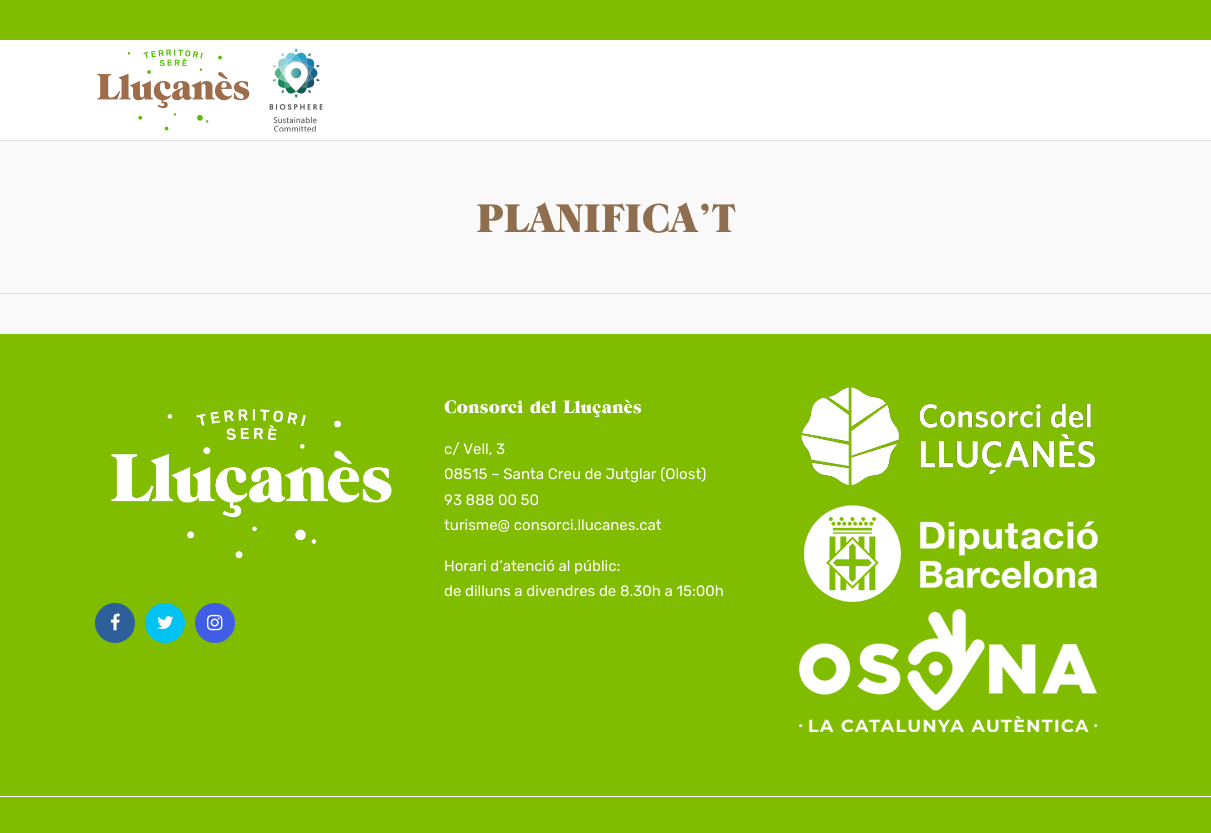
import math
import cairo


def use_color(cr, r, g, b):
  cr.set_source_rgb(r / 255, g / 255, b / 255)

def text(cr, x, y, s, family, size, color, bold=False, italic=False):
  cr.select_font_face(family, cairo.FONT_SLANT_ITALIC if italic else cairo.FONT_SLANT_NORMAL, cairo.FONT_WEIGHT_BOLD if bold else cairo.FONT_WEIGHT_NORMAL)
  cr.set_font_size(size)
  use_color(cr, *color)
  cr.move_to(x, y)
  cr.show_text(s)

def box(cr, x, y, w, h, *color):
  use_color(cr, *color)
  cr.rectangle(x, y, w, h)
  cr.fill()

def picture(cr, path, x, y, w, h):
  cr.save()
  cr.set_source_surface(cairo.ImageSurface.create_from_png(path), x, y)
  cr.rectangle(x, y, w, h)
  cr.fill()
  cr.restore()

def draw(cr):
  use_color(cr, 249, 249, 249)
  cr.paint()
  box(cr, 0, 0, 1211, 40, 128, 188, 0)
  box(cr, 0, 40, 1211, 100, 255, 255, 255)
  box(cr, 0, 140, 1211, 1, 220, 224, 224)
  picture(cr, "img_01.png", 97, 48, 226, 84)
  box(cr, 0, 293, 1211, 1, 220, 224, 224)
  box(cr, 0, 334, 1211, 462, 128, 188, 0)
  picture(cr, "img_02.png", 111, 409, 281, 150)
  use_color(cr, 45, 95, 154)
  cr.arc(115, 623, 20, 0, 2 * math.pi)
  cr.fill()
  picture(cr, "img_03.png", 110, 613, 10, 18)
  use_color(cr, 0, 195, 243)
  cr.arc(165, 623, 20, 0, 2 * math.pi)
  cr.fill()
  picture(cr, "img_04.png", 157, 616, 17, 13)
  use_color(cr, 64, 93, 230)
  cr.arc(215, 623, 20, 0, 2 * math.pi)
  cr.fill()
  picture(cr, "img_05.png", 207, 614, 16, 17)
  picture(cr, "img_06.png", 799, 387, 299, 345)
  box(cr, 0, 797, 1211, 36, 128, 188, 0)
  box(cr, 0, 796, 1211, 1, 255, 255, 255)
  text(cr, 476, 232, "PLANIFICA’T", "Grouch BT", 40, (143, 109, 79))
  text(cr, 444, 413, "Consorci del Lluçanès", "Grouch BT", 18, (255, 255, 255))
  text(cr, 444, 454, "c/ Vell, 3", "Rubik", 15, (255, 255, 255))
  text(cr, 444, 479, "08515 – Santa Creu de Jutglar (Olost)", "Rubik", 15, (255, 255, 255))
  text(cr, 444, 505, "93 888 00 50", "Rubik", 15, (255, 255, 255))
  text(cr, 444, 530, "turisme@ consorci.llucanes.cat", "Rubik", 15, (255, 255, 255))
  text(cr, 444, 571, "Horari d’atenció al públic:", "Rubik", 15, (255, 255, 255))
  text(cr, 444, 596, "de dilluns a divendres de 8.30h a 15:00h", "Rubik", 15, (255, 255, 255))


surface = cairo.ImageSurface(cairo.FORMAT_RGB24, 1211, 833)
cr = cairo.Context(surface)
options = cairo.FontOptions()
options.set_hint_metrics(cairo.HINT_METRICS_OFF)
options.set_hint_style(cairo.HINT_STYLE_NONE)
cr.set_font_options(options)
cr.set_miter_limit(4)
draw(cr)
surface.write_to_png("out.png")
